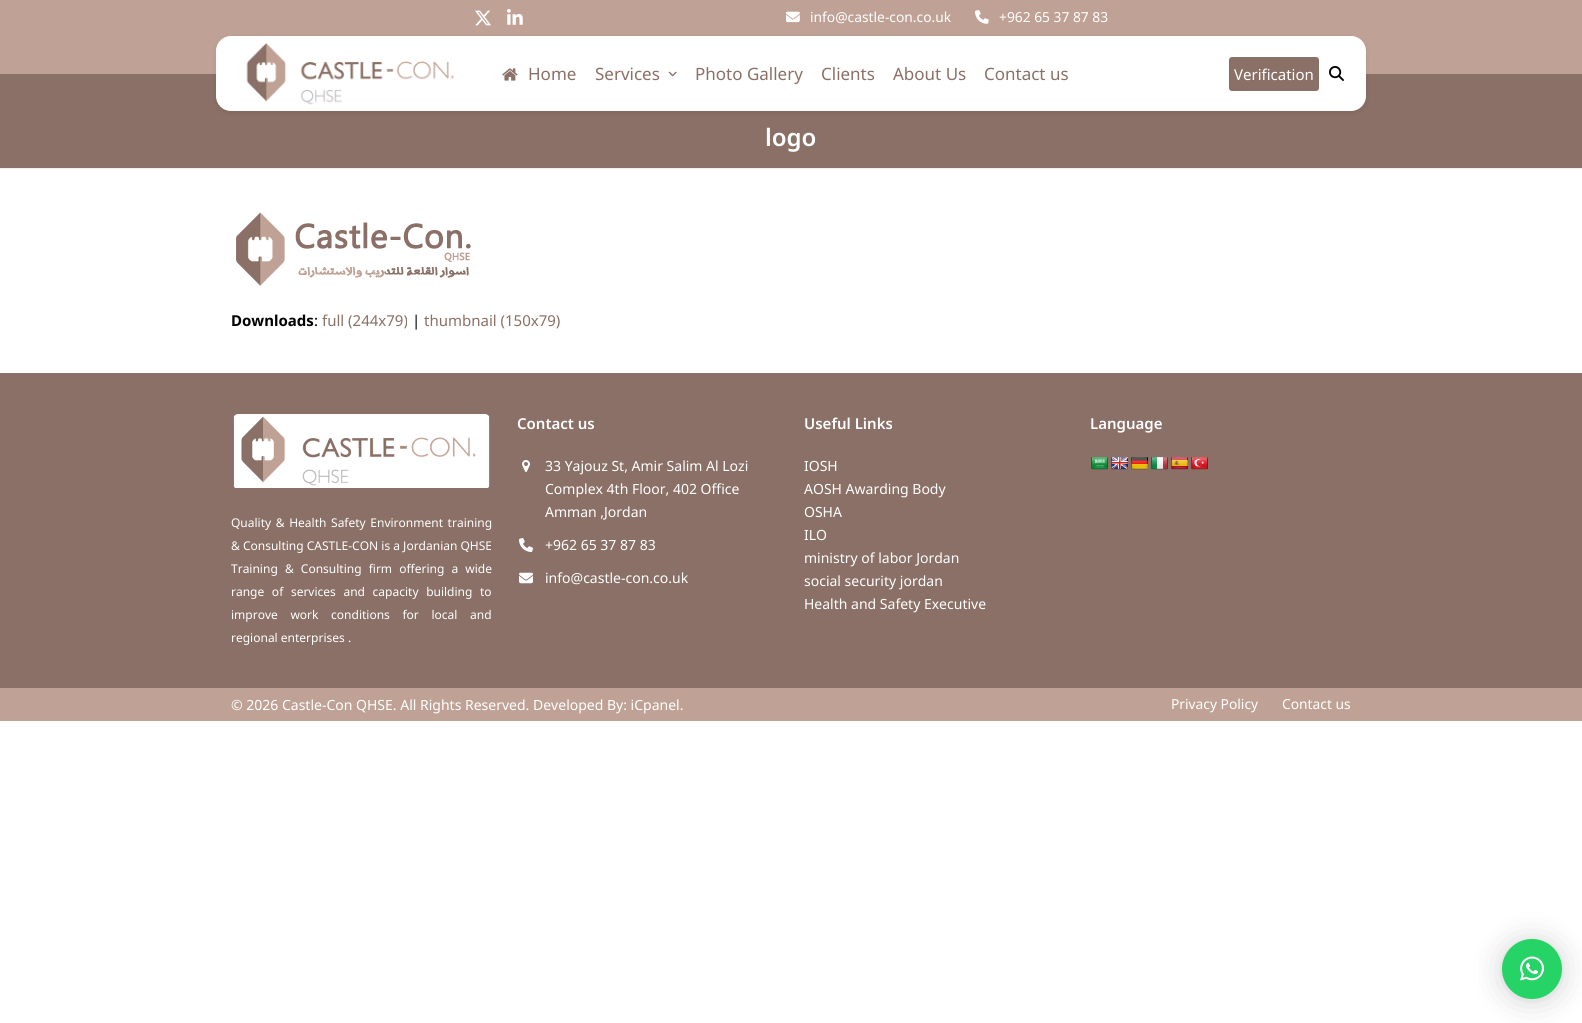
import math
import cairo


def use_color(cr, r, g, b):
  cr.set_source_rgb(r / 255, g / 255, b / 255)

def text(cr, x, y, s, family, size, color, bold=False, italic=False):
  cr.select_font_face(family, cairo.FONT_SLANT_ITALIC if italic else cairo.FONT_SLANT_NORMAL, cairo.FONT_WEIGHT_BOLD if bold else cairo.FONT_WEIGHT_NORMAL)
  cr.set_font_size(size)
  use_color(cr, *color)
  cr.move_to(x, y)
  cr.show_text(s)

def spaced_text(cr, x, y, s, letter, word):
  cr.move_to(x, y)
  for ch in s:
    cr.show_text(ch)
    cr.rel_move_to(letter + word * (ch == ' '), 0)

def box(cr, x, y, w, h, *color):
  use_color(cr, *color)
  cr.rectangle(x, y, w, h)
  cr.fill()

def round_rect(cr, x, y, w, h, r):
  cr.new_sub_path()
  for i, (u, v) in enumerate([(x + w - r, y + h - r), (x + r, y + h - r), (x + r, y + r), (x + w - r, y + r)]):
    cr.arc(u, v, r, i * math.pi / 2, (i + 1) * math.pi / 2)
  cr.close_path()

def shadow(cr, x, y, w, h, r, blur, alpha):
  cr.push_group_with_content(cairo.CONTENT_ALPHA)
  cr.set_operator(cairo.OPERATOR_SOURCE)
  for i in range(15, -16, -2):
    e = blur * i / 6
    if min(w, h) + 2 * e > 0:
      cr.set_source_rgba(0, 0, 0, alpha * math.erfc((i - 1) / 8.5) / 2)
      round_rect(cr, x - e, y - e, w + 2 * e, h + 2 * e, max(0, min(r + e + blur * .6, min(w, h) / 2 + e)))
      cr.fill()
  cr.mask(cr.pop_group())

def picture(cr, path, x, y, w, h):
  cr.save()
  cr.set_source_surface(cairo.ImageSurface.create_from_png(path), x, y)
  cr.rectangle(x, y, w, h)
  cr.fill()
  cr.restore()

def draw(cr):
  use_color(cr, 255, 255, 255)
  cr.paint()
  box(cr, 0, 0, 1582, 74, 191, 162, 149)
  picture(cr, "img_01.png", 475, 10, 16, 16)
  picture(cr, "img_02.png", 507, 9, 16, 16)
  picture(cr, "img_03.png", 786, 11, 14, 12)
  picture(cr, "img_04.png", 975, 10, 14, 14)
  box(cr, 0, 74, 1582, 94, 138, 112, 102)
  use_color(cr, 0, 0, 0)
  shadow(cr, 216, 38, 1150, 75, 15, 3, 0.08)
  use_color(cr, 255, 255, 255)
  round_rect(cr, 216, 36, 1150, 75, 15)
  cr.fill()
  picture(cr, "img_05.png", 246, 43, 208, 62)
  picture(cr, "img_06.png", 502, 68, 16, 13)
  picture(cr, "img_07.png", 668, 71, 9, 6)
  use_color(cr, 138, 112, 102)
  round_rect(cr, 1229, 57, 90, 34, 3)
  cr.fill()
  picture(cr, "img_08.png", 1329, 66, 15, 15)
  box(cr, 0, 168, 1582, 1, 238, 238, 238)
  picture(cr, "img_09.png", 236, 212, 235, 74)
  box(cr, 0, 373, 1582, 315, 138, 112, 102)
  picture(cr, "img_10.png", 522, 460, 8, 12)
  picture(cr, "img_11.png", 519, 538, 14, 14)
  picture(cr, "img_12.png", 519, 572, 14, 12)
  picture(cr, "img_13.png", 1091, 457, 17, 13)
  picture(cr, "img_14.png", 1111, 457, 17, 13)
  picture(cr, "img_15.png", 1131, 457, 17, 13)
  picture(cr, "img_16.png", 1151, 457, 17, 13)
  picture(cr, "img_17.png", 1171, 457, 17, 13)
  picture(cr, "img_18.png", 1191, 457, 17, 13)
  picture(cr, "img_19.png", 233, 414, 257, 74)
  box(cr, 0, 688, 1582, 33, 191, 162, 149)
  use_color(cr, 0, 0, 0)
  shadow(cr, 1502, 941, 60, 60, 30, 16, 0.16)
  shadow(cr, 1502, 940, 60, 60, 30, 3, 0.06)
  use_color(cr, 37, 211, 102)
  cr.arc(1532, 969, 30, 0, 2 * math.pi)
  cr.fill()
  picture(cr, "img_20.png", 1520, 956, 24, 25)
  text(cr, 810, 22, "info@castle-con.co.uk", "Noto Sans", 13.8, (255, 255, 255))
  text(cr, 999, 22, "+962 65 37 87 83", "Noto Sans", 13.8, (255, 255, 255))
  text(cr, 528, 80, "Home", "Noto Sans", 17, (138, 112, 102))
  text(cr, 595, 80, "Services", "Noto Sans", 17, (138, 112, 102))
  text(cr, 695, 80, "Photo Gallery", "Noto Sans", 17, (138, 112, 102))
  text(cr, 821, 80, "Clients", "Noto Sans", 17, (138, 112, 102))
  text(cr, 893, 80, "About Us", "Noto Sans", 17, (138, 112, 102))
  text(cr, 984, 80, "Contact us", "Noto Sans", 17, (138, 112, 102))
  text(cr, 1234, 80, "Verification", "Noto Sans", 15, (255, 255, 255))
  text(cr, 765, 146, "logo", "Noto Sans SemiBold", 24, (255, 255, 255))
  text(cr, 231, 326, "Downloads", "Noto Sans", 15, (0, 0, 0), bold=True)
  text(cr, 314, 326, ":", "Noto Sans", 15, (0, 0, 0))
  text(cr, 322, 326, "full (244x79)", "Noto Sans", 15, (138, 112, 102))
  text(cr, 412, 326, "|", "Noto Sans", 15, (0, 0, 0))
  text(cr, 424, 326, "thumbnail (150x79)", "Noto Sans", 15, (138, 112, 102))
  text(cr, 517, 429, "Contact us", "Noto Sans SemiBold", 15, (255, 255, 255))
  text(cr, 545, 471, "33 Yajouz St, Amir Salim Al Lozi", "Noto Sans", 14, (255, 255, 255))
  text(cr, 545, 494, "Complex 4th Floor, 402 Office", "Noto Sans", 14, (255, 255, 255))
  text(cr, 545, 517, "Amman ,Jordan", "Noto Sans", 14, (255, 255, 255))
  text(cr, 545, 550, "+962 65 37 87 83", "Noto Sans", 14, (255, 255, 255))
  text(cr, 545, 583, "info@castle-con.co.uk", "Noto Sans", 14, (255, 255, 255))
  text(cr, 804, 429, "Useful Links", "Noto Sans SemiBold", 15, (255, 255, 255))
  text(cr, 804, 471, "IOSH", "Noto Sans", 14, (255, 255, 255))
  text(cr, 804, 494, "AOSH Awarding Body", "Noto Sans", 14, (255, 255, 255))
  text(cr, 804, 517, "OSHA", "Noto Sans", 14, (255, 255, 255))
  text(cr, 804, 540, "ILO", "Noto Sans", 14, (255, 255, 255))
  text(cr, 804, 563, "ministry of labor Jordan", "Noto Sans", 14, (255, 255, 255))
  text(cr, 804, 586, "social security jordan", "Noto Sans", 14, (255, 255, 255))
  text(cr, 804, 609, "Health and Safety Executive", "Noto Sans", 14, (255, 255, 255))
  text(cr, 1090, 429, "Language", "Noto Sans SemiBold", 15, (255, 255, 255))
  cr.select_font_face("Noto Sans")
  cr.set_font_size(12)
  spaced_text(cr, 231, 527, "Quality & Health Safety Environment training", 0, 1.5)
  text(cr, 231, 550, "& Consulting CASTLE-CON is a Jordanian QHSE", "Noto Sans", 12, (255, 255, 255))
  spaced_text(cr, 231, 573, "Training & Consulting firm offering a wide", 0, 4)
  spaced_text(cr, 231, 596, "range of services and capacity building to", 0, 4.5)
  spaced_text(cr, 231, 619, "improve work conditions for local and", 0, 9.5)
  text(cr, 231, 642, "regional enterprises .", "Noto Sans", 12, (255, 255, 255))
  text(cr, 231, 710, "© 2026 Castle-Con QHSE. All Rights Reserved. Developed By: iCpanel.", "Noto Sans", 14, (255, 255, 255))
  text(cr, 1171, 709, "Privacy Policy", "Noto Sans", 13.8, (255, 255, 255))
  text(cr, 1282, 709, "Contact us", "Noto Sans", 13.8, (255, 255, 255))


surface = cairo.ImageSurface(cairo.FORMAT_RGB24, 1582, 1023)
cr = cairo.Context(surface)
options = cairo.FontOptions()
options.set_hint_metrics(cairo.HINT_METRICS_OFF)
options.set_hint_style(cairo.HINT_STYLE_NONE)
cr.set_font_options(options)
cr.set_miter_limit(4)
draw(cr)
surface.write_to_png("out.png")
